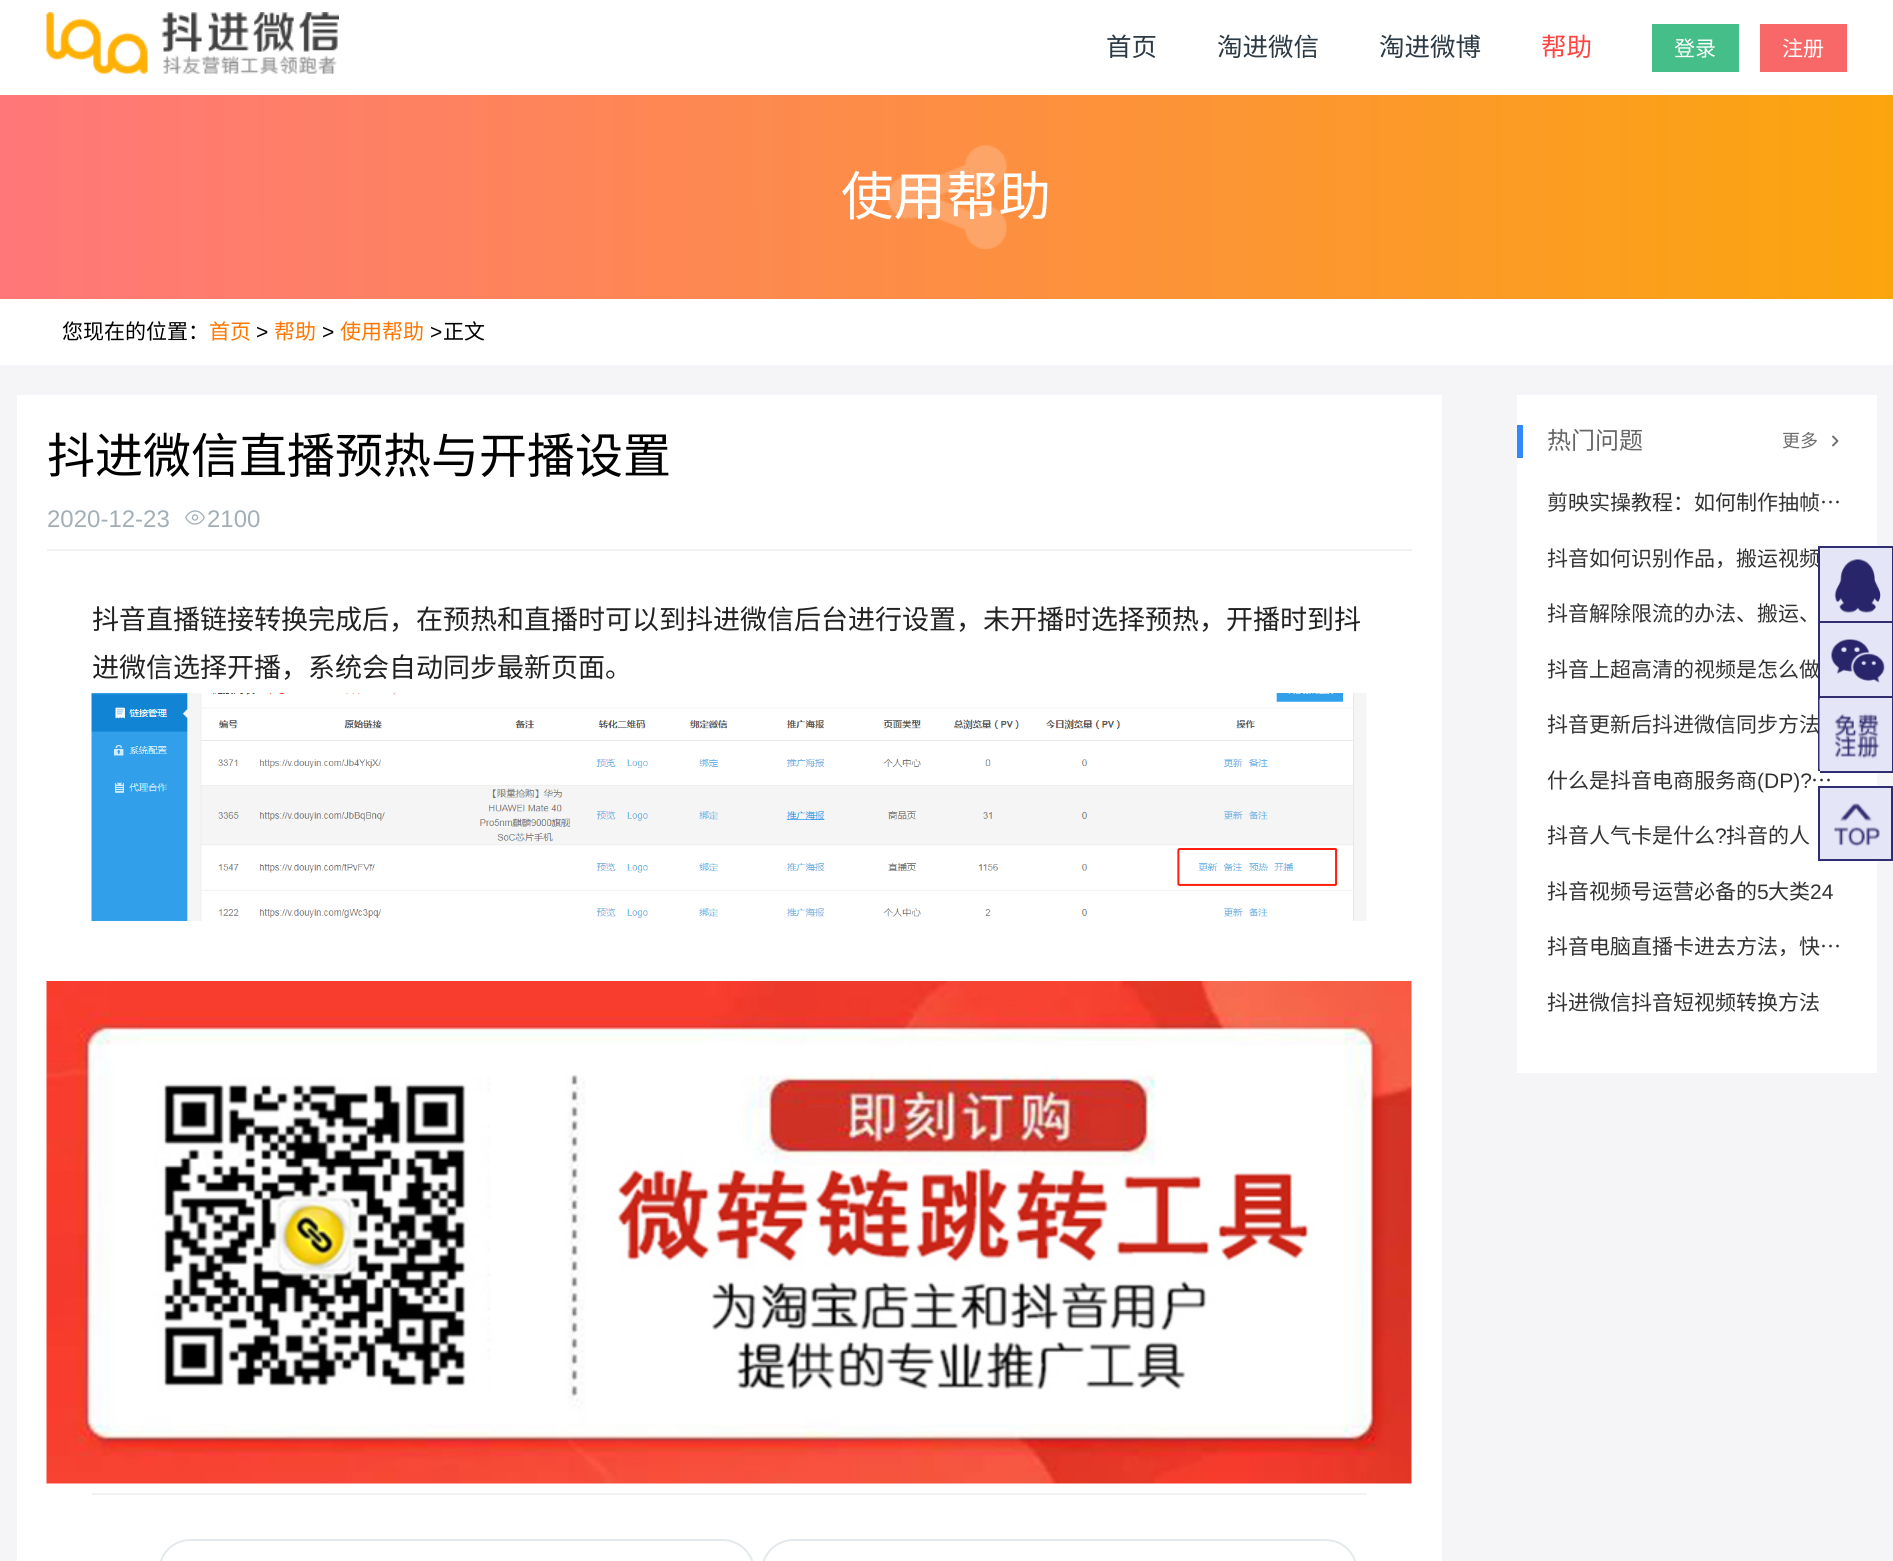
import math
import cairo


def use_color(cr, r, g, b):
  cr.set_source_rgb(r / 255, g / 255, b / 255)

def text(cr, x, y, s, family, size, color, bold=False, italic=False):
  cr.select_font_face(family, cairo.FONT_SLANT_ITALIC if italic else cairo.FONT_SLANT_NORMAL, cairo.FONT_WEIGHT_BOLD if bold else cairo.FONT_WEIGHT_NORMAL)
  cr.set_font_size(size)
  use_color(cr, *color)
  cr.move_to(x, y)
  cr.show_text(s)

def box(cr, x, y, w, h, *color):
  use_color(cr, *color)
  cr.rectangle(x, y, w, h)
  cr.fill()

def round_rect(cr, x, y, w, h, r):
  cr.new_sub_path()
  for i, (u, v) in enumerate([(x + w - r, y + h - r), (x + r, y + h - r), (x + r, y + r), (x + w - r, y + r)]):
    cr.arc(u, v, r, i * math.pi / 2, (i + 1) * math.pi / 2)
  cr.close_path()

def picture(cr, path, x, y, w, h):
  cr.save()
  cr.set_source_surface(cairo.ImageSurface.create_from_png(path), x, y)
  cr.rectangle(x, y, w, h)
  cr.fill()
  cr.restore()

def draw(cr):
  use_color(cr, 245, 245, 247)
  cr.paint()
  box(cr, 0, 0, 1893, 95, 255, 255, 255)
  picture(cr, "img_01.png", 46, 12, 293, 63)
  box(cr, 1652, 24, 87, 48, 70, 190, 138)
  box(cr, 1760, 24, 87, 48, 249, 104, 104)
  gradient = cairo.LinearGradient(0, 197, 1893, 196)
  gradient.add_color_stop_rgba(0, 1, 0.467, 0.475, 1)
  gradient.add_color_stop_rgba(1, 0.984, 0.647, 0.055, 1)
  cr.set_source(gradient)
  cr.rectangle(0, 95, 1893, 204)
  cr.fill()
  picture(cr, "img_02.png", 888, 145, 119, 104)
  box(cr, 0, 299, 1893, 66, 255, 255, 255)
  box(cr, 17, 395, 1425, 1166, 255, 255, 255)
  box(cr, 47, 549, 1365, 2, 240, 242, 245)
  picture(cr, "img_03.png", 185, 510, 20, 15)
  picture(cr, "img_04.png", 91, 693, 1276, 228)
  picture(cr, "img_05.png", 46, 981, 1366, 503)
  box(cr, 92, 1493, 1275, 2, 240, 242, 245)
  round_rect(cr, 159, 1540, 595, 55, 31.5)
  use_color(cr, 228, 234, 236)
  cr.stroke()
  round_rect(cr, 762, 1540, 595, 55, 31.5)
  cr.stroke()
  box(cr, 1517, 395, 360, 678, 255, 255, 255)
  box(cr, 1517, 425, 6, 33, 51, 136, 255)
  cr.new_path()
  cr.move_to(1833, 436.5)
  cr.line_to(1837.5, 441)
  cr.line_to(1833, 445.5)
  use_color(cr, 109, 109, 109)
  cr.set_line_width(1.9)
  cr.set_line_cap(cairo.LINE_CAP_ROUND)
  cr.set_line_join(cairo.LINE_JOIN_ROUND)
  cr.stroke()
  box(cr, 1820, 548, 72, 73, 229, 229, 248)
  box(cr, 1818, 546, 75, 2, 48, 45, 114)
  box(cr, 1892, 546, 1, 75, 48, 45, 114)
  picture(cr, "img_06.png", 1834, 559, 47, 54)
  box(cr, 1820, 623, 72, 73, 229, 229, 248)
  box(cr, 1818, 621, 75, 2, 48, 45, 114)
  box(cr, 1892, 621, 1, 75, 48, 45, 114)
  picture(cr, "img_07.png", 1831, 639, 54, 44)
  box(cr, 1820, 698, 72, 73, 229, 229, 248)
  box(cr, 1818, 696, 75, 2, 48, 45, 114)
  box(cr, 1892, 698, 1, 75, 48, 45, 114)
  box(cr, 1820, 771, 73, 2, 48, 45, 114)
  box(cr, 1820, 788, 71, 71, 229, 229, 248)
  picture(cr, "img_09.png", 1834, 803, 46, 44)
  cr.rectangle(1819, 787, 73, 73)
  use_color(cr, 48, 45, 114)
  cr.set_line_width(2)
  cr.set_line_cap(cairo.LINE_CAP_BUTT)
  cr.set_line_join(cairo.LINE_JOIN_MITER)
  cr.stroke()
  text(cr, 1106, 56, "首页", "Noto Sans CJK SC", 25.5, (44, 58, 70))
  text(cr, 1217, 56, "淘进微信", "Noto Sans CJK SC", 25.5, (44, 58, 70))
  text(cr, 1379, 56, "淘进微博", "Noto Sans CJK SC", 25.5, (44, 58, 70))
  text(cr, 1541, 56, "帮助", "Noto Sans CJK SC", 25.5, (255, 68, 68))
  text(cr, 1674, 56, "登录", "Noto Sans CJK SC", 21, (255, 255, 255))
  text(cr, 1782, 56, "注册", "Noto Sans CJK SC", 21, (255, 255, 255))
  text(cr, 841, 215, "使用帮助", "Noto Sans CJK SC", 52.5, (255, 255, 255))
  text(cr, 62, 339, "您现在的位置：", "Noto Sans CJK SC", 21, (0, 0, 0))
  text(cr, 209, 339, "首页", "Noto Sans CJK SC", 21, (255, 118, 0))
  text(cr, 256, 339, ">", "Liberation Sans", 21, (0, 0, 0))
  text(cr, 274, 339, "帮助", "Noto Sans CJK SC", 21, (255, 118, 0))
  text(cr, 322, 339, ">", "Liberation Sans", 21, (0, 0, 0))
  text(cr, 340, 339, "使用帮助", "Noto Sans CJK SC", 21, (255, 118, 0))
  text(cr, 430, 339, ">", "Liberation Sans", 21, (0, 0, 0))
  text(cr, 443, 339, "正文", "Noto Sans CJK SC", 21, (0, 0, 0))
  text(cr, 47, 473, "抖进微信直播预热与开播设置", "Noto Sans CJK SC", 48, (0, 0, 0))
  text(cr, 47, 527, "2020-12-23", "Liberation Sans", 24, (163, 175, 183))
  text(cr, 207, 527, "2100", "Liberation Sans", 24, (163, 175, 183))
  text(cr, 92, 629, "抖音直播链接转换完成后，在预热和直播时可以到抖进微信后台进行设置，未开播时选择预热，开播时到抖", "Noto Sans CJK SC", 27, (34, 34, 34))
  text(cr, 92, 677, "进微信选择开播，系统会自动同步最新页面。", "Noto Sans CJK SC", 27, (34, 34, 34))
  text(cr, 1547, 449, "热门问题", "Noto Sans CJK SC", 24, (102, 102, 102))
  text(cr, 1782, 447, "更多", "Noto Sans CJK SC", 18, (109, 109, 109))
  text(cr, 1547, 510, "剪映实操教程：如何制作抽帧…", "Noto Sans CJK SC", 21, (51, 51, 51))
  text(cr, 1547, 566, "抖音如何识别作品，搬运视频", "Noto Sans CJK SC", 21, (51, 51, 51))
  text(cr, 1547, 621, "抖音解除限流的办法、搬运、", "Noto Sans CJK SC", 21, (51, 51, 51))
  text(cr, 1547, 677, "抖音上超高清的视频是怎么做", "Noto Sans CJK SC", 21, (51, 51, 51))
  text(cr, 1547, 732, "抖音更新后抖进微信同步方法", "Noto Sans CJK SC", 21, (51, 51, 51))
  text(cr, 1547, 788, "什么是抖音电商服务商", "Noto Sans CJK SC", 21, (51, 51, 51))
  text(cr, 1757, 788, "(DP)?", "Liberation Sans", 21, (51, 51, 51))
  text(cr, 1811, 788, "…", "Noto Sans CJK SC", 21, (51, 51, 51))
  text(cr, 1547, 843, "抖音人气卡是什么", "Noto Sans CJK SC", 21, (51, 51, 51))
  text(cr, 1715, 843, "?", "Liberation Sans", 21, (51, 51, 51))
  text(cr, 1726, 843, "抖音的人", "Noto Sans CJK SC", 21, (51, 51, 51))
  text(cr, 1547, 899, "抖音视频号运营必备的", "Noto Sans CJK SC", 21, (51, 51, 51))
  text(cr, 1757, 899, "5", "Liberation Sans", 21, (51, 51, 51))
  text(cr, 1768, 899, "大类", "Noto Sans CJK SC", 21, (51, 51, 51))
  text(cr, 1810, 899, "24", "Liberation Sans", 21, (51, 51, 51))
  text(cr, 1547, 954, "抖音电脑直播卡进去方法，快…", "Noto Sans CJK SC", 21, (51, 51, 51))
  text(cr, 1547, 1010, "抖进微信抖音短视频转换方法", "Noto Sans CJK SC", 21, (51, 51, 51))
  box(cr, 1818, 546, 2, 75, 48, 45, 114)
  box(cr, 1818, 621, 2, 75, 48, 45, 114)
  box(cr, 1818, 696, 2, 75, 48, 45, 114)
  picture(cr, "img_08.png", 1819, 698, 73, 72)


surface = cairo.ImageSurface(cairo.FORMAT_RGB24, 1893, 1561)
cr = cairo.Context(surface)
options = cairo.FontOptions()
options.set_hint_metrics(cairo.HINT_METRICS_OFF)
options.set_hint_style(cairo.HINT_STYLE_NONE)
cr.set_font_options(options)
cr.set_miter_limit(4)
draw(cr)
surface.write_to_png("out.png")
